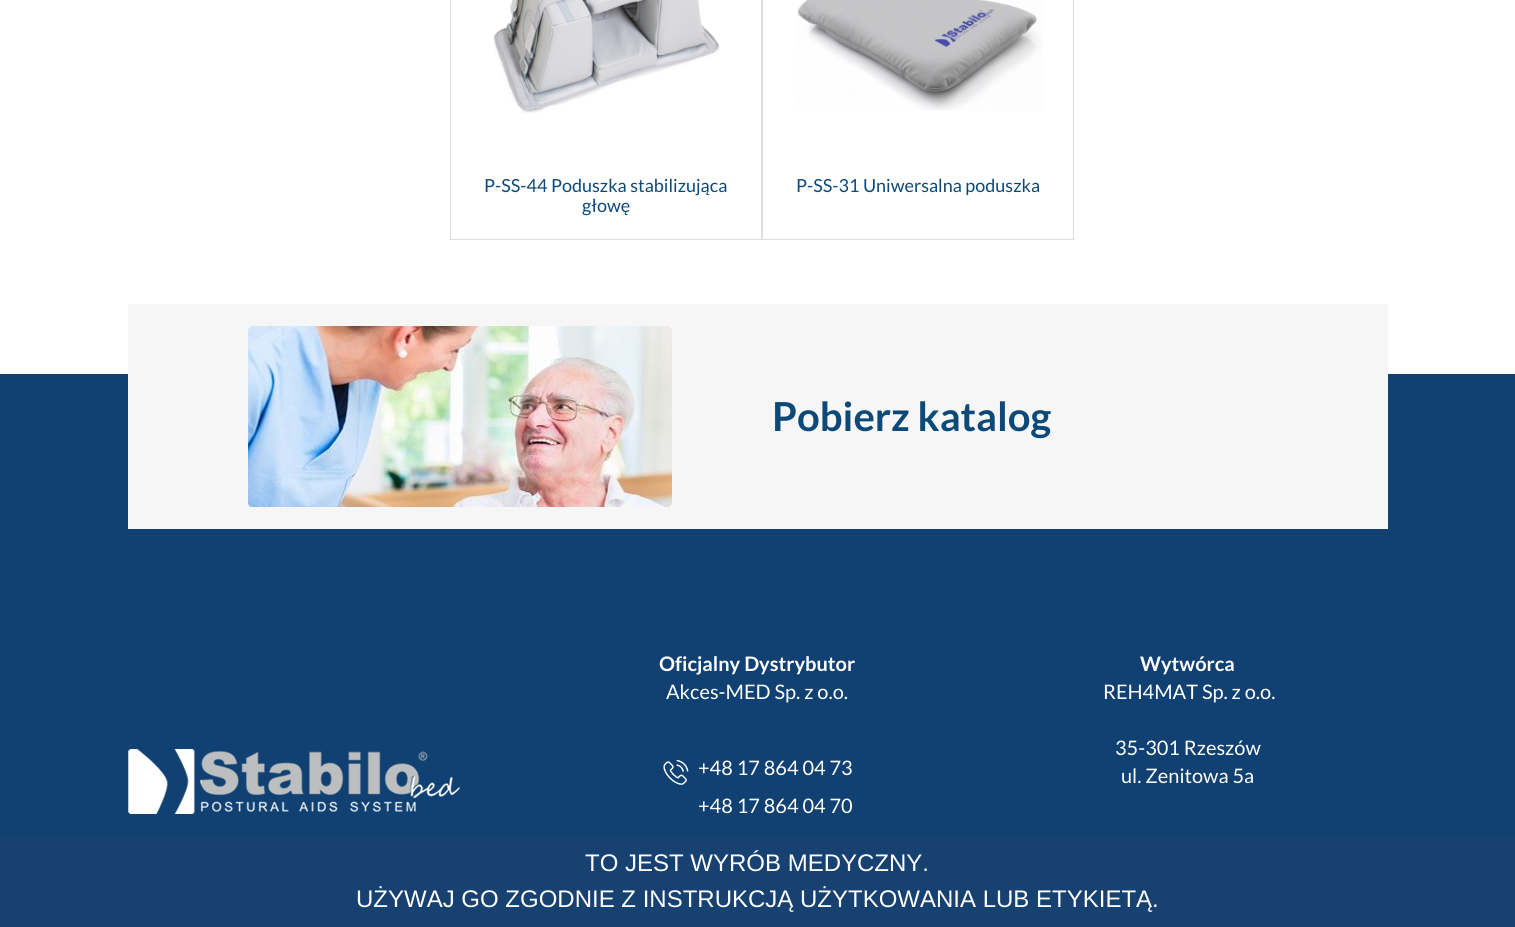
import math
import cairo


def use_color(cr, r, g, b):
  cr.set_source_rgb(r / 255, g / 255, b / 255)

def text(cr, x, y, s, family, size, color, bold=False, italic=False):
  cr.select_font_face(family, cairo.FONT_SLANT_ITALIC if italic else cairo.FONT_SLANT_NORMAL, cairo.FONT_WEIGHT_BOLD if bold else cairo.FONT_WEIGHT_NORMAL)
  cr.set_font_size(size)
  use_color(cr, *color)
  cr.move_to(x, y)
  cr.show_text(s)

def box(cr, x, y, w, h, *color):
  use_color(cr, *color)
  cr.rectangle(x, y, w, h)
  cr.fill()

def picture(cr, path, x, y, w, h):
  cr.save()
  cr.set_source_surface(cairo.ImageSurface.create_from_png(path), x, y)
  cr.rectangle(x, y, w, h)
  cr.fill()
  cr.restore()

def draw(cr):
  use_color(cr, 255, 255, 255)
  cr.paint()
  cr.rectangle(450.5, -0.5, 311, 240)
  use_color(cr, 221, 221, 221)
  cr.set_line_width(1)
  cr.stroke()
  picture(cr, "img_01.png", 493, 0, 227, 113)
  cr.rectangle(762.5, -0.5, 311, 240)
  cr.stroke()
  picture(cr, "img_02.png", 797, 0, 246, 111)
  box(cr, 0, 374, 1515, 460, 17, 65, 114)
  box(cr, 128, 304, 1260, 225, 246, 246, 246)
  picture(cr, "img_03.png", 248, 326, 424, 181)
  picture(cr, "img_04.png", 128, 749, 332, 65)
  picture(cr, "img_05.png", 663, 759, 26, 26)
  box(cr, 0, 834, 1515, 93, 23, 65, 113)
  text(cr, 484, 192, "P-SS-44 Poduszka stabilizująca", "Lato", 18, (11, 73, 121))
  text(cr, 582, 212, "głowę", "Lato", 18, (11, 73, 121))
  text(cr, 796, 192, "P-SS-31 Uniwersalna poduszka", "Lato", 18, (11, 73, 121))
  text(cr, 772, 431, "Pobierz katalog", "Lato", 40, (11, 73, 121), bold=True)
  text(cr, 659, 671, "Oficjalny Dystrybutor", "Lato", 20, (255, 255, 255), bold=True)
  text(cr, 666, 699, "Akces-MED Sp. z o.o.", "Lato", 20, (255, 255, 255))
  text(cr, 698, 775, "+48 17 864 04 73", "Lato", 20, (255, 255, 255))
  text(cr, 698, 813, "+48 17 864 04 70", "Lato", 20, (255, 255, 255))
  text(cr, 1140, 671, "Wytwórca", "Lato", 20, (255, 255, 255), bold=True)
  text(cr, 1103, 699, "REH4MAT Sp. z o.o.", "Lato", 20, (255, 255, 255))
  text(cr, 1115, 755, "35-301 Rzeszów", "Lato", 20, (255, 255, 255))
  text(cr, 1121, 783, "ul. Zenitowa 5a", "Lato", 20, (255, 255, 255))
  text(cr, 585, 871, "TO JEST WYRÓB MEDYCZNY.", "Liberation Sans", 24, (255, 255, 255))
  text(cr, 356, 907, "UŻYWAJ GO ZGODNIE Z INSTRUKCJĄ UŻYTKOWANIA LUB ETYKIETĄ.", "Liberation Sans", 24, (255, 255, 255))


surface = cairo.ImageSurface(cairo.FORMAT_RGB24, 1515, 927)
cr = cairo.Context(surface)
options = cairo.FontOptions()
options.set_hint_metrics(cairo.HINT_METRICS_OFF)
options.set_hint_style(cairo.HINT_STYLE_NONE)
cr.set_font_options(options)
cr.set_miter_limit(4)
draw(cr)
surface.write_to_png("out.png")
